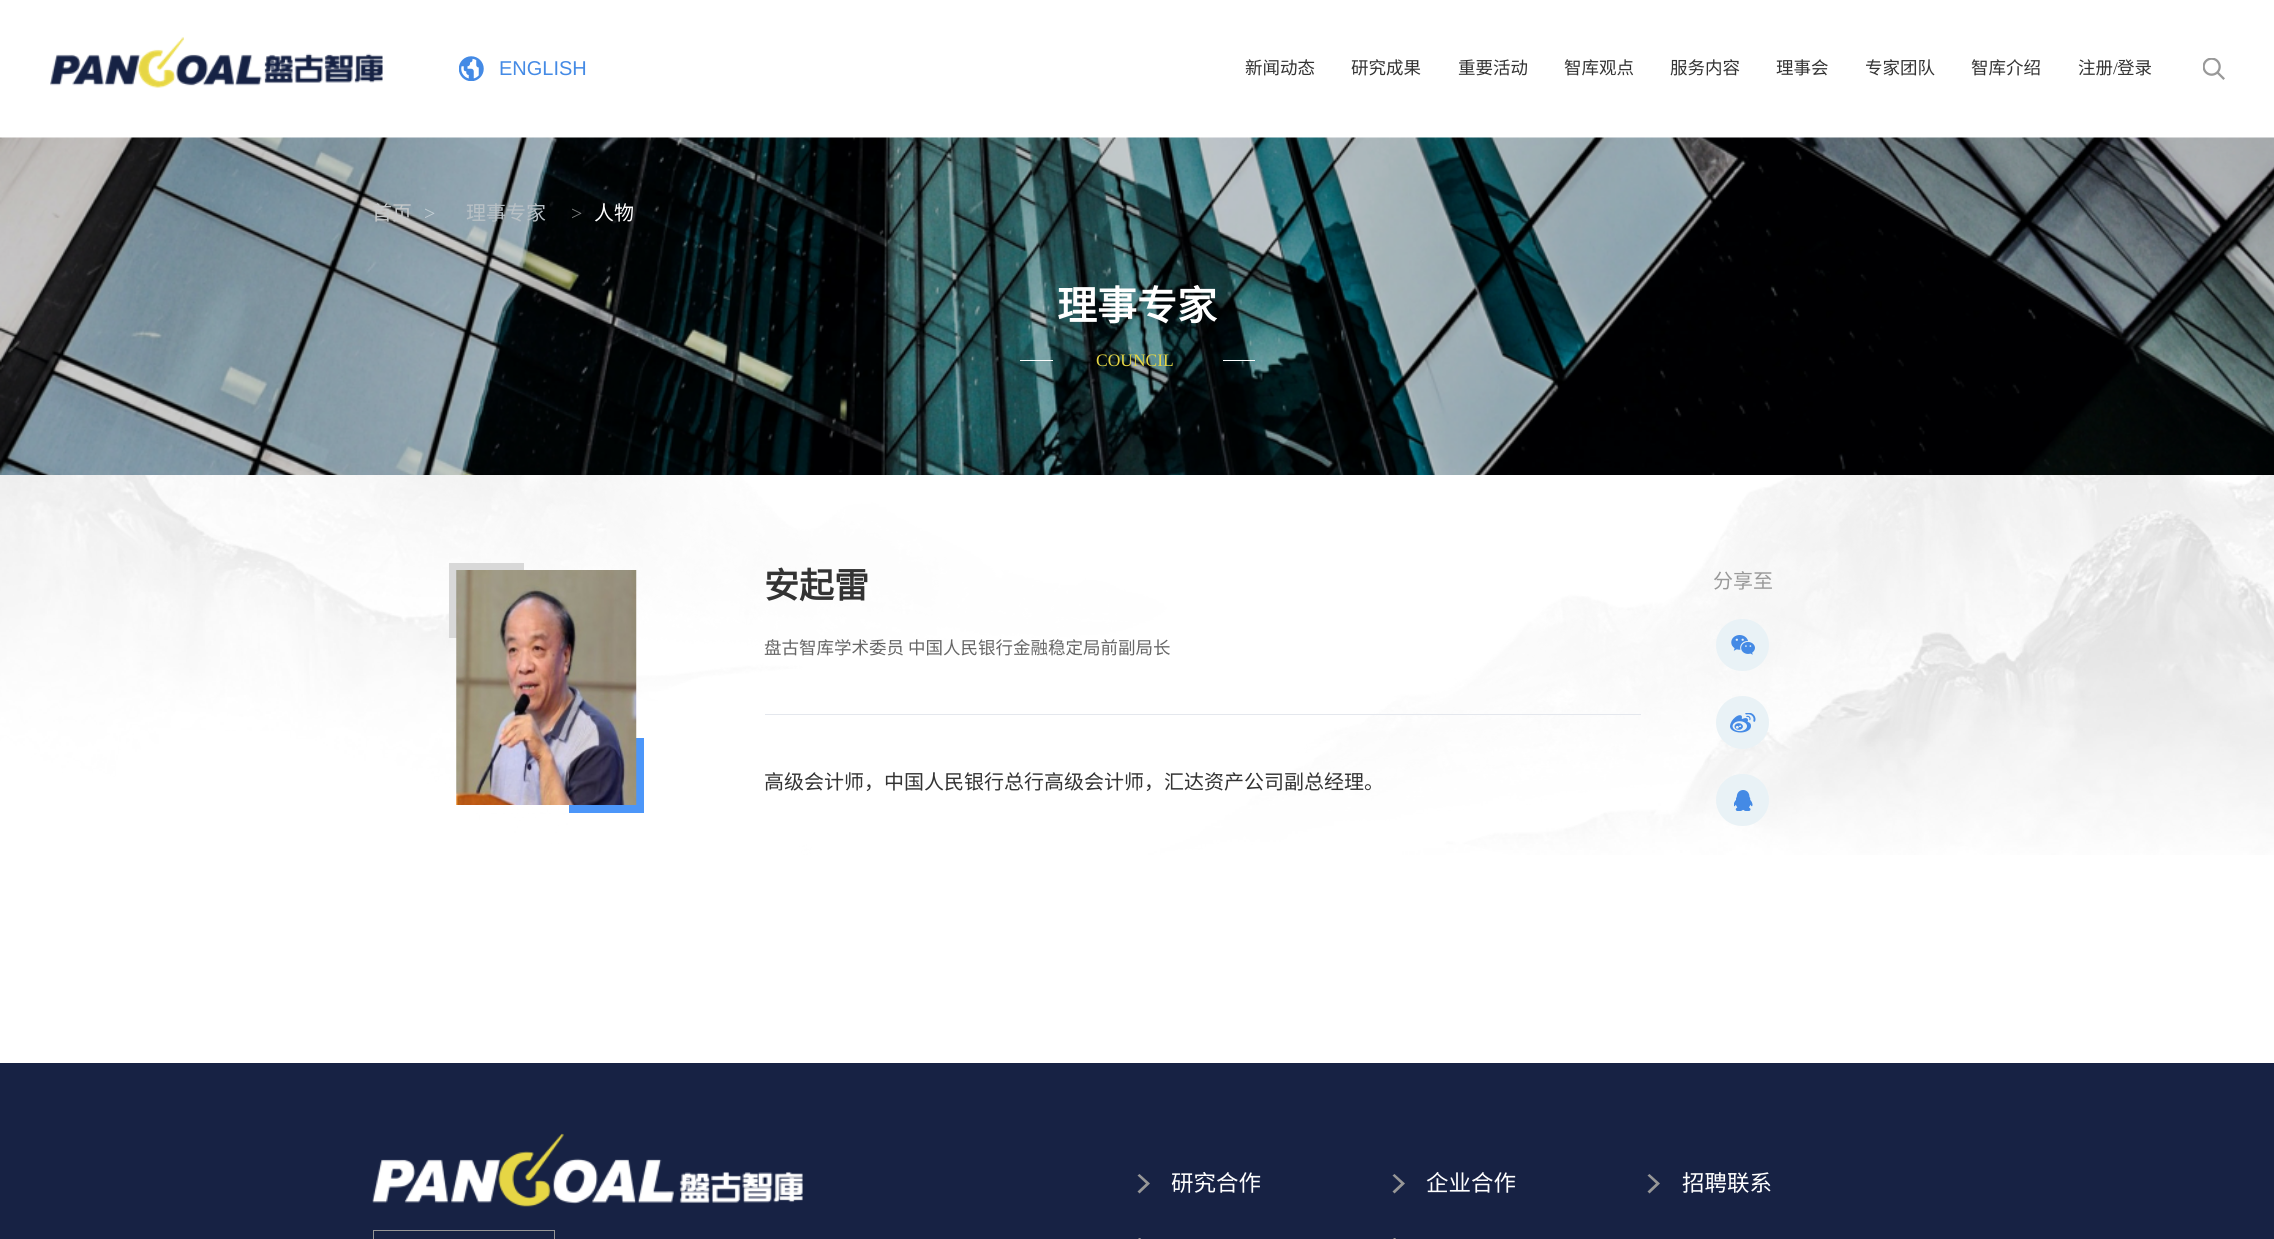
import math
import cairo


def use_color(cr, r, g, b):
  cr.set_source_rgb(r / 255, g / 255, b / 255)

def text(cr, x, y, s, family, size, color, bold=False, italic=False):
  cr.select_font_face(family, cairo.FONT_SLANT_ITALIC if italic else cairo.FONT_SLANT_NORMAL, cairo.FONT_WEIGHT_BOLD if bold else cairo.FONT_WEIGHT_NORMAL)
  cr.set_font_size(size)
  use_color(cr, *color)
  cr.move_to(x, y)
  cr.show_text(s)

def box(cr, x, y, w, h, *color):
  use_color(cr, *color)
  cr.rectangle(x, y, w, h)
  cr.fill()

def round_rect(cr, x, y, w, h, r):
  cr.new_sub_path()
  for i, (u, v) in enumerate([(x + w - r, y + h - r), (x + r, y + h - r), (x + r, y + r), (x + w - r, y + r)]):
    cr.arc(u, v, r, i * math.pi / 2, (i + 1) * math.pi / 2)
  cr.close_path()

def picture(cr, path, x, y, w, h):
  cr.save()
  cr.set_source_surface(cairo.ImageSurface.create_from_png(path), x, y)
  cr.rectangle(x, y, w, h)
  cr.fill()
  cr.restore()

def draw(cr):
  use_color(cr, 255, 255, 255)
  cr.paint()
  picture(cr, "img_01.png", 50, 37, 333, 51)
  picture(cr, "img_02.png", 459, 56, 25, 25)
  picture(cr, "img_03.png", 2203, 58, 22, 22)
  picture(cr, "img_04.png", 0, 137, 2274, 338)
  box(cr, 1020, 360, 33, 1, 255, 255, 255)
  box(cr, 1223, 360, 32, 1, 255, 255, 255)
  picture(cr, "img_05.png", 0, 475, 2274, 380)
  box(cr, 449, 563, 75, 75, 216, 216, 216)
  box(cr, 569, 738, 75, 75, 76, 150, 249)
  picture(cr, "img_06.png", 456, 570, 181, 235)
  use_color(cr, 233, 242, 246)
  round_rect(cr, 1716, 619, 53, 52, 26)
  cr.fill()
  picture(cr, "img_07.png", 1731, 635, 24, 20)
  cr.arc(1742.5, 722.5, 26.5, 0, 2 * math.pi)
  cr.fill()
  picture(cr, "img_08.png", 1730, 713, 26, 20)
  round_rect(cr, 1716, 774, 53, 52, 26)
  cr.fill()
  picture(cr, "img_09.png", 1734, 790, 19, 21)
  box(cr, 765, 714, 876, 1, 228, 231, 237)
  box(cr, 0, 1063, 2274, 176, 23, 34, 68)
  picture(cr, "img_10.png", 372, 1133, 431, 74)
  cr.rectangle(373.5, 1230.5, 181, 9)
  use_color(cr, 151, 151, 151)
  cr.set_line_width(1)
  cr.stroke()
  cr.new_path()
  cr.move_to(1139.5, 1193.5)
  cr.line_to(1137.5, 1191.5)
  cr.line_to(1146, 1183.5)
  cr.line_to(1137.5, 1175.5)
  cr.line_to(1139.5, 1174)
  cr.line_to(1150, 1183.5)
  cr.close_path()
  cr.fill()
  cr.new_path()
  cr.move_to(1394.5, 1193.5)
  cr.line_to(1392.5, 1191.5)
  cr.line_to(1401, 1183.5)
  cr.line_to(1392.5, 1175.5)
  cr.line_to(1394.5, 1174)
  cr.line_to(1405, 1183.5)
  cr.close_path()
  cr.fill()
  cr.new_path()
  cr.move_to(1649.5, 1193.5)
  cr.line_to(1647.5, 1191.5)
  cr.line_to(1656, 1183.5)
  cr.line_to(1647.5, 1175.5)
  cr.line_to(1649.5, 1174)
  cr.line_to(1660, 1183.5)
  cr.close_path()
  cr.fill()
  picture(cr, "img_11.png", 1138, 1238, 3, 1)
  picture(cr, "img_11.png", 1393, 1238, 3, 1)
  text(cr, 499, 75, "ENGLISH", "Liberation Sans", 20, (68, 138, 229))
  text(cr, 1245, 74, "新闻动态", "Noto Sans CJK SC", 17.5, (51, 51, 51))
  text(cr, 1351, 74, "研究成果", "Noto Sans CJK SC", 17.5, (51, 51, 51))
  text(cr, 1458, 74, "重要活动", "Noto Sans CJK SC", 17.5, (51, 51, 51))
  text(cr, 1564, 74, "智库观点", "Noto Sans CJK SC", 17.5, (51, 51, 51))
  text(cr, 1670, 74, "服务内容", "Noto Sans CJK SC", 17.5, (51, 51, 51))
  text(cr, 1776, 74, "理事会", "Noto Sans CJK SC", 17.5, (51, 51, 51))
  text(cr, 1865, 74, "专家团队", "Noto Sans CJK SC", 17.5, (51, 51, 51))
  text(cr, 1971, 74, "智库介绍", "Noto Sans CJK SC", 17.5, (51, 51, 51))
  text(cr, 2078, 74, "注册", "Noto Sans CJK SC", 17.5, (51, 51, 51))
  text(cr, 2113, 74, "/", "Liberation Serif", 17.5, (51, 51, 51))
  text(cr, 2117, 74, "登录", "Noto Sans CJK SC", 17.5, (51, 51, 51))
  text(cr, 372, 220, "首页", "Noto Sans CJK SC", 20, (197, 200, 201))
  text(cr, 424, 220, ">", "Liberation Serif", 20, (197, 207, 213))
  text(cr, 466, 220, "理事专家", "Noto Sans CJK SC", 20, (184, 192, 197))
  text(cr, 571, 220, ">", "Liberation Serif", 20, (125, 127, 127))
  text(cr, 594, 220, "人物", "Noto Sans CJK SC", 20, (255, 255, 255))
  text(cr, 1057, 320, "理事专家", "Noto Sans CJK SC", 40, (255, 255, 255), bold=True)
  text(cr, 1096, 366, "COUNCIL", "Liberation Serif", 17.5, (230, 214, 69))
  text(cr, 764, 598, "安起雷", "Noto Sans CJK SC", 35, (51, 51, 51), bold=True)
  text(cr, 1713, 588, "分享至", "Noto Sans CJK SC", 20, (153, 153, 153))
  text(cr, 764, 654, "盘古智库学术委员 中国人民银行金融稳定局前副局长", "Noto Sans CJK SC", 17.5, (102, 102, 102))
  text(cr, 764, 789, "高级会计师，中国人民银行总行高级会计师，汇达资产公司副总经理。", "Noto Sans CJK SC", 20, (51, 51, 51))
  text(cr, 1171, 1191, "研究合作", "Noto Sans CJK SC", 22.5, (255, 255, 255))
  text(cr, 1426, 1191, "企业合作", "Noto Sans CJK SC", 22.5, (255, 255, 255))
  text(cr, 1682, 1191, "招聘联系", "Noto Sans CJK SC", 22.5, (255, 255, 255))


surface = cairo.ImageSurface(cairo.FORMAT_RGB24, 2274, 1239)
cr = cairo.Context(surface)
options = cairo.FontOptions()
options.set_hint_metrics(cairo.HINT_METRICS_OFF)
options.set_hint_style(cairo.HINT_STYLE_NONE)
cr.set_font_options(options)
cr.set_miter_limit(4)
draw(cr)
surface.write_to_png("out.png")
